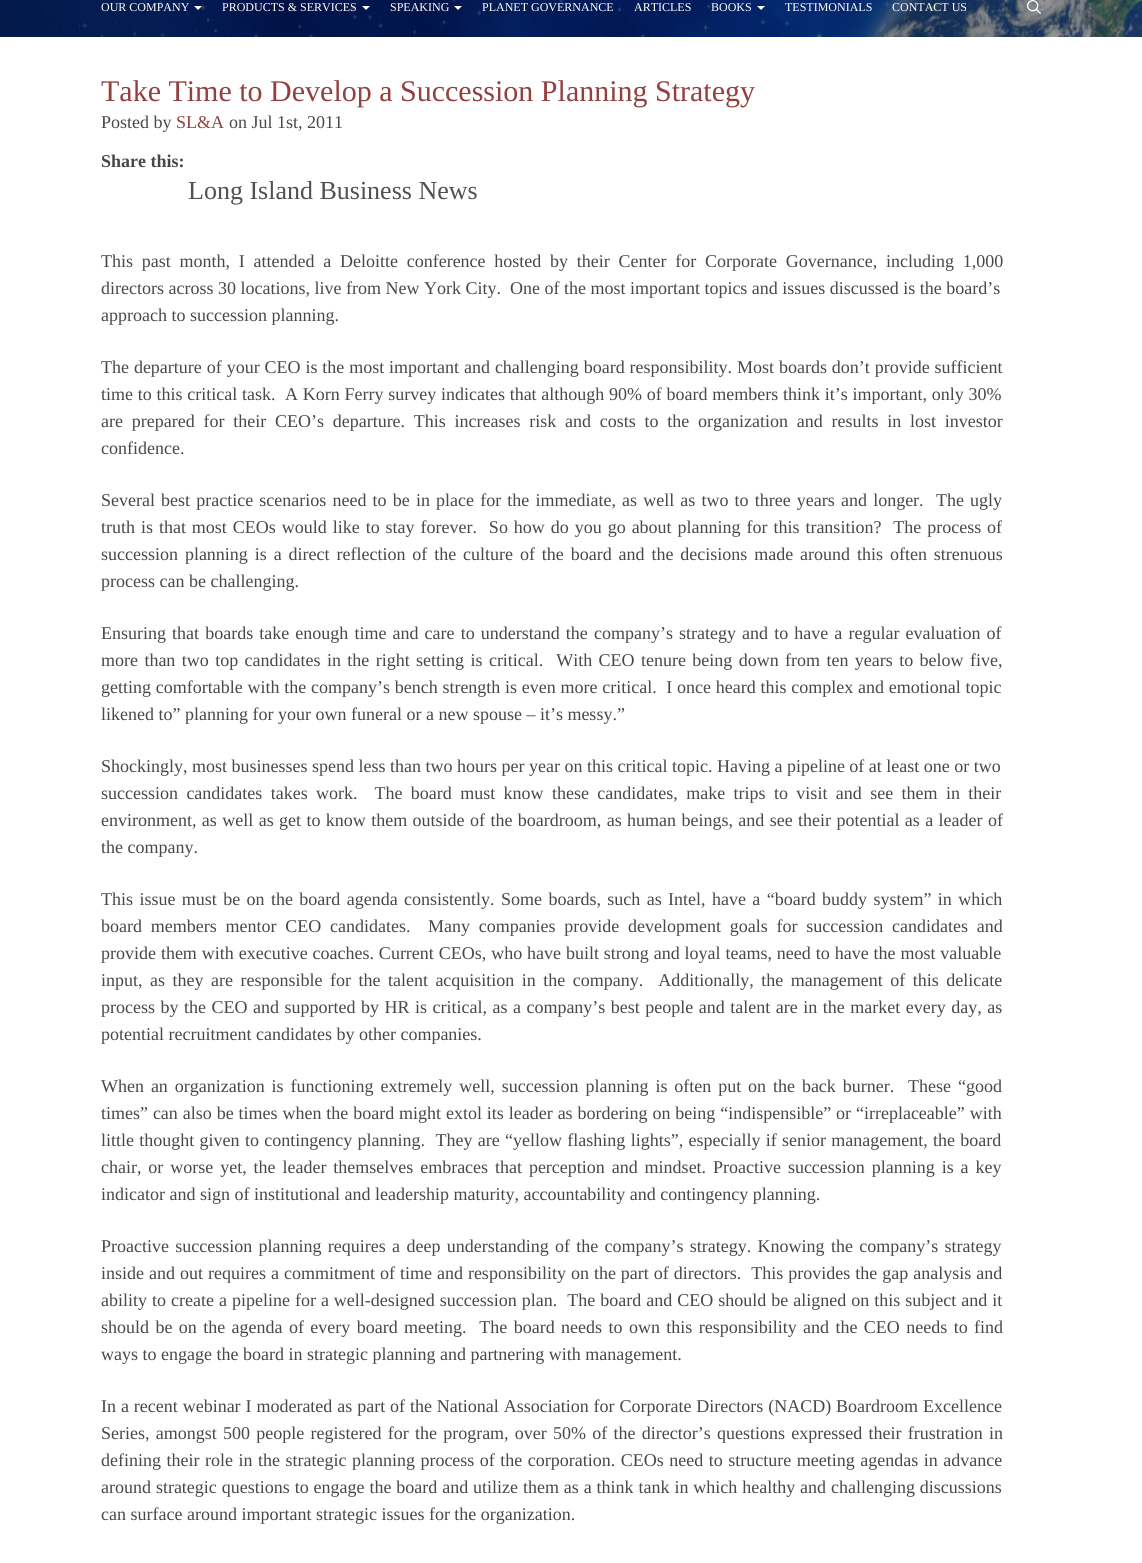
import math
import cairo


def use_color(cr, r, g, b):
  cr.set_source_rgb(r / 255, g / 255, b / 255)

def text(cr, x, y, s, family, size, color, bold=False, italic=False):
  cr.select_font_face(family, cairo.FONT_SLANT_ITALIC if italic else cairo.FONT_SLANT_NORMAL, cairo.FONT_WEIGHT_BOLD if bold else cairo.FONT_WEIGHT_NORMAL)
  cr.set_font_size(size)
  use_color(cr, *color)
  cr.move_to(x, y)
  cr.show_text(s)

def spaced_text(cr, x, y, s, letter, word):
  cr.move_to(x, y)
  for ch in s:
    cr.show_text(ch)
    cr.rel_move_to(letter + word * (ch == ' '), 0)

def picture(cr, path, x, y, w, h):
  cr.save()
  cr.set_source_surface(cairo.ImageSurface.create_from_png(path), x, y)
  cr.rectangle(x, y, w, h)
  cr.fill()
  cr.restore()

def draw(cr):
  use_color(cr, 255, 255, 255)
  cr.paint()
  picture(cr, "img_01.png", 0, 0, 1142, 37)
  use_color(cr, 255, 255, 255)
  cr.new_path()
  cr.move_to(194, 6)
  cr.line_to(202, 6)
  cr.line_to(198, 10)
  cr.close_path()
  cr.fill()
  cr.new_path()
  cr.move_to(362, 6)
  cr.line_to(370, 6)
  cr.line_to(366, 10)
  cr.close_path()
  cr.fill()
  cr.new_path()
  cr.move_to(454, 6)
  cr.line_to(462, 6)
  cr.line_to(458, 10)
  cr.close_path()
  cr.fill()
  cr.new_path()
  cr.move_to(757, 6)
  cr.line_to(765, 6)
  cr.line_to(761, 10)
  cr.close_path()
  cr.fill()
  picture(cr, "img_02.png", 1027, 0, 14, 14)
  text(cr, 101, 11, "OUR COMPANY", "Liberation Serif", 12, (255, 255, 255))
  text(cr, 222, 11, "PRODUCTS & SERVICES", "Liberation Serif", 12, (255, 255, 255))
  text(cr, 390, 11, "SPEAKING", "Liberation Serif", 12, (255, 255, 255))
  text(cr, 482, 11, "PLANET GOVERNANCE", "Liberation Serif", 12, (255, 255, 255))
  text(cr, 634, 11, "ARTICLES", "Liberation Serif", 12, (255, 255, 255))
  text(cr, 711, 11, "BOOKS", "Liberation Serif", 12, (255, 255, 255))
  text(cr, 785, 11, "TESTIMONIALS", "Liberation Serif", 12, (255, 255, 255))
  text(cr, 892, 11, "CONTACT US", "Liberation Serif", 12, (255, 255, 255))
  text(cr, 101, 101, "Take Time to Develop a Succession Planning Strategy", "Liberation Serif", 30, (146, 64, 64))
  text(cr, 101, 128, "Posted by", "Liberation Serif", 18, (73, 72, 72))
  text(cr, 176, 128, "SL&A", "Liberation Serif", 18, (146, 64, 64))
  text(cr, 229, 128, "on Jul 1st, 2011", "Liberation Serif", 18, (73, 72, 72))
  text(cr, 101, 167, "Share this:", "Liberation Serif", 18, (73, 72, 72), bold=True)
  text(cr, 188, 199, "Long Island Business News", "Liberation Serif", 26, (81, 81, 81))
  cr.set_font_size(18)
  use_color(cr, 73, 72, 72)
  spaced_text(cr, 101, 267, "This past month, I attended a Deloitte conference hosted by their Center for Corporate Governance, including 1,000", 0, 4.25)
  text(cr, 101, 294, "directors across 30 locations, live from New York City.  One of the most important topics and issues discussed is the board’s", "Liberation Serif", 18, (73, 72, 72))
  text(cr, 101, 321, "approach to succession planning.", "Liberation Serif", 18, (73, 72, 72))
  spaced_text(cr, 101, 373, "The departure of your CEO is the most important and challenging board responsibility. Most boards don’t provide sufficient", 0, 0.4)
  spaced_text(cr, 101, 400, "time to this critical task.  A Korn Ferry survey indicates that although 90% of board members think it’s important, only 30%", 0, 0.25)
  spaced_text(cr, 101, 427, "are prepared for their CEO’s departure. This increases risk and costs to the organization and results in lost investor", 0, 4.25)
  text(cr, 101, 454, "confidence.", "Liberation Serif", 18, (73, 72, 72))
  spaced_text(cr, 101, 506, "Several best practice scenarios need to be in place for the immediate, as well as two to three years and longer.  The ugly", 0, 1.65)
  spaced_text(cr, 101, 533, "truth is that most CEOs would like to stay forever.  So how do you go about planning for this transition?  The process of", 0, 1.45)
  spaced_text(cr, 101, 560, "succession planning is a direct reflection of the culture of the board and the decisions made around this often strenuous", 0, 2.4)
  text(cr, 101, 587, "process can be challenging.", "Liberation Serif", 18, (73, 72, 72))
  spaced_text(cr, 101, 639, "Ensuring that boards take enough time and care to understand the company’s strategy and to have a regular evaluation of", 0, 1.6)
  spaced_text(cr, 101, 666, "more than two top candidates in the right setting is critical.  With CEO tenure being down from ten years to below five,", 0, 1.9)
  spaced_text(cr, 101, 693, "getting comfortable with the company’s bench strength is even more critical.  I once heard this complex and emotional topic", 0, 0.25)
  text(cr, 101, 720, "likened to” planning for your own funeral or a new spouse – it’s messy.”", "Liberation Serif", 18, (73, 72, 72))
  text(cr, 101, 772, "Shockingly, most businesses spend less than two hours per year on this critical topic. Having a pipeline of at least one or two", "Liberation Serif", 18, (73, 72, 72))
  spaced_text(cr, 101, 799, "succession candidates takes work.  The board must know these candidates, make trips to visit and see them in their", 0, 3.9)
  spaced_text(cr, 101, 826, "environment, as well as get to know them outside of the boardroom, as human beings, and see their potential as a leader of", 0, 0.9)
  text(cr, 101, 853, "the company.", "Liberation Serif", 18, (73, 72, 72))
  spaced_text(cr, 101, 905, "This issue must be on the board agenda consistently. Some boards, such as Intel, have a “board buddy system” in which", 0, 1.9)
  spaced_text(cr, 101, 932, "board members mentor CEO candidates.  Many companies provide development goals for succession candidates and", 0, 4.25)
  spaced_text(cr, 101, 959, "provide them with executive coaches. Current CEOs, who have built strong and loyal teams, need to have the most valuable", 0, 0.4)
  spaced_text(cr, 101, 986, "input, as they are responsible for the talent acquisition in the company.  Additionally, the management of this delicate", 0, 3)
  spaced_text(cr, 101, 1013, "process by the CEO and supported by HR is critical, as a company’s best people and talent are in the market every day, as", 0, 1)
  text(cr, 101, 1040, "potential recruitment candidates by other companies.", "Liberation Serif", 18, (73, 72, 72))
  spaced_text(cr, 101, 1092, "When an organization is functioning extremely well, succession planning is often put on the back burner.  These “good", 0, 2.4)
  spaced_text(cr, 101, 1119, "times” can also be times when the board might extol its leader as bordering on being “indispensible” or “irreplaceable” with", 0, 0.4)
  spaced_text(cr, 101, 1146, "little thought given to contingency planning.  They are “yellow flashing lights”, especially if senior management, the board", 0, 0.8)
  spaced_text(cr, 101, 1173, "chair, or worse yet, the leader themselves embraces that perception and mindset. Proactive succession planning is a key", 0, 2.4)
  text(cr, 101, 1200, "indicator and sign of institutional and leadership maturity, accountability and contingency planning.", "Liberation Serif", 18, (73, 72, 72))
  spaced_text(cr, 101, 1252, "Proactive succession planning requires a deep understanding of the company’s strategy. Knowing the company’s strategy", 0, 1.8)
  spaced_text(cr, 101, 1279, "inside and out requires a commitment of time and responsibility on the part of directors.  This provides the gap analysis and", 0, 0.5)
  spaced_text(cr, 101, 1306, "ability to create a pipeline for a well-designed succession plan.  The board and CEO should be aligned on this subject and it", 0, 0.5)
  spaced_text(cr, 101, 1333, "should be on the agenda of every board meeting.  The board needs to own this responsibility and the CEO needs to find", 0, 1.9)
  text(cr, 101, 1360, "ways to engage the board in strategic planning and partnering with management.", "Liberation Serif", 18, (73, 72, 72))
  spaced_text(cr, 101, 1412, "In a recent webinar I moderated as part of the National Association for Corporate Directors (NACD) Boardroom Excellence", 0, 0.4)
  spaced_text(cr, 101, 1439, "Series, amongst 500 people registered for the program, over 50% of the director’s questions expressed their frustration in", 0, 1.75)
  spaced_text(cr, 101, 1466, "defining their role in the strategic planning process of the corporation. CEOs need to structure meeting agendas in advance", 0, 1)
  spaced_text(cr, 101, 1493, "around strategic questions to engage the board and utilize them as a think tank in which healthy and challenging discussions", 0, 0.4)
  text(cr, 101, 1520, "can surface around important strategic issues for the organization.", "Liberation Serif", 18, (73, 72, 72))


surface = cairo.ImageSurface(cairo.FORMAT_RGB24, 1142, 1563)
cr = cairo.Context(surface)
options = cairo.FontOptions()
options.set_hint_metrics(cairo.HINT_METRICS_OFF)
options.set_hint_style(cairo.HINT_STYLE_NONE)
cr.set_font_options(options)
cr.set_miter_limit(4)
draw(cr)
surface.write_to_png("out.png")
